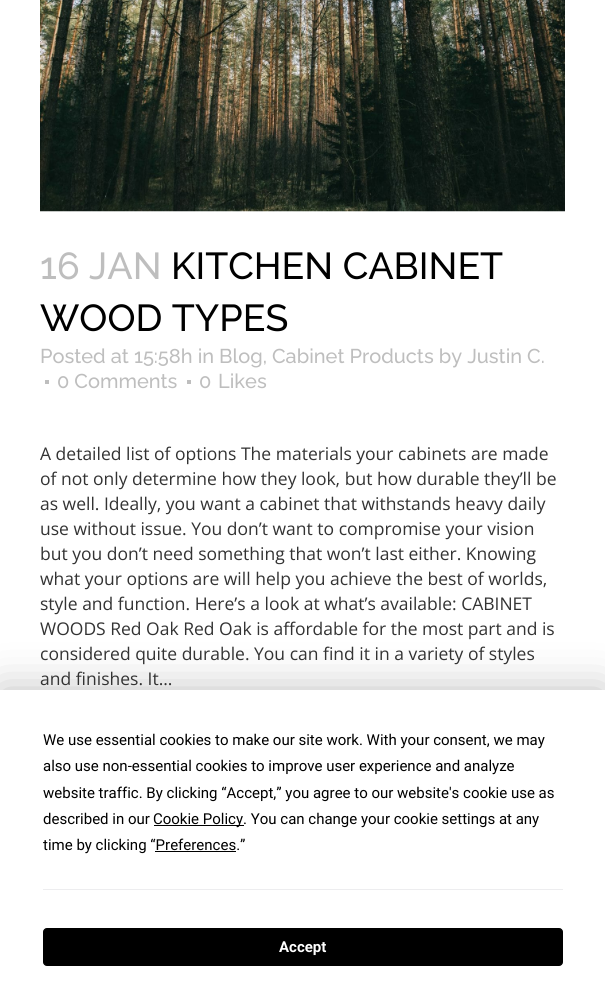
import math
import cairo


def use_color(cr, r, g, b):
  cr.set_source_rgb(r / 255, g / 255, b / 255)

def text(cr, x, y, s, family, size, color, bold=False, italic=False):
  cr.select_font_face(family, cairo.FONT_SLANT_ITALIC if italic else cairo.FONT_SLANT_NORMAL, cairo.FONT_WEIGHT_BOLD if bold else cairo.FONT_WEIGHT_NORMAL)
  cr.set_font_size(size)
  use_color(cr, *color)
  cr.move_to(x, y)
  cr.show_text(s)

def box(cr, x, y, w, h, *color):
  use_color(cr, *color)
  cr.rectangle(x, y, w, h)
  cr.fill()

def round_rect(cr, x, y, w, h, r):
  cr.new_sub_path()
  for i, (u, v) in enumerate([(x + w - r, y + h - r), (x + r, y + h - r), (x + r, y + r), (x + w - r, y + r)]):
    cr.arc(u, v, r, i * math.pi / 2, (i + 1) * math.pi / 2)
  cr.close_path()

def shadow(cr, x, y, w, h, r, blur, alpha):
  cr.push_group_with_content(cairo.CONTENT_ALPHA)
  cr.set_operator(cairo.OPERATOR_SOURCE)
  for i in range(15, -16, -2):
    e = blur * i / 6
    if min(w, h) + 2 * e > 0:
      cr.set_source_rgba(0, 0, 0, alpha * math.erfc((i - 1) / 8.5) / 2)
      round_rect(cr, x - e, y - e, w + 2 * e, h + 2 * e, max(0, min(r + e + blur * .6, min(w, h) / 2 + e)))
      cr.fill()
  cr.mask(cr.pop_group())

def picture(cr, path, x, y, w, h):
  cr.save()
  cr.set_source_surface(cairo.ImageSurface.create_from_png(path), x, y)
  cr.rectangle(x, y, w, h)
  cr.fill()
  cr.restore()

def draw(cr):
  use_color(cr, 255, 255, 255)
  cr.paint()
  picture(cr, "img_01.png", 40, 0, 525, 212)
  box(cr, 45, 380, 4, 4, 190, 190, 190)
  box(cr, 187, 380, 4, 4, 190, 190, 190)
  use_color(cr, 0, 0, 0)
  shadow(cr, 0, 690, 605, 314, 0, 22, 0.25)
  box(cr, 0, 690, 605, 313, 255, 255, 255)
  box(cr, 154, 825, 90, 1, 0, 0, 0)
  box(cr, 155, 851, 81, 1, 0, 0, 0)
  box(cr, 43, 889, 520, 1, 237, 237, 239)
  use_color(cr, 0, 0, 0)
  round_rect(cr, 43.5, 928.5, 519, 37, 3.5)
  cr.fill_preserve()
  cr.set_line_width(1)
  cr.stroke()
  text(cr, 40, 279, "16 JAN", "Raleway Medium", 37.5, (190, 190, 190))
  text(cr, 171, 279, "KITCHEN CABINET", "Raleway Medium", 37.5, (0, 0, 0))
  text(cr, 40, 331, "WOOD TYPES", "Raleway Medium", 37.5, (0, 0, 0))
  text(cr, 40, 363, "Posted at 15:58h in Blog, Cabinet Products by Justin C.", "Raleway Medium", 20, (190, 190, 190))
  text(cr, 57, 388, "0 Comments", "Raleway Medium", 20, (190, 190, 190))
  text(cr, 199, 388, "0", "Raleway Medium", 20, (190, 190, 190))
  text(cr, 218, 388, "Likes", "Raleway Medium", 20, (190, 190, 190))
  text(cr, 40, 460, "A detailed list of options The materials your cabinets are made", "Open Sans", 17.5, (51, 51, 51))
  text(cr, 40, 485, "of not only determine how they look, but how durable they’ll be", "Open Sans", 17.5, (51, 51, 51))
  text(cr, 40, 510, "as well. Ideally, you want a cabinet that withstands heavy daily", "Open Sans", 17.5, (51, 51, 51))
  text(cr, 40, 535, "use without issue. You don’t want to compromise your vision", "Open Sans", 17.5, (51, 51, 51))
  text(cr, 40, 560, "but you don’t need something that won’t last either. Knowing", "Open Sans", 17.5, (51, 51, 51))
  text(cr, 40, 585, "what your options are will help you achieve the best of worlds,", "Open Sans", 17.5, (51, 51, 51))
  text(cr, 40, 610, "style and function. Here’s a look at what’s available: CABINET", "Open Sans", 17.5, (51, 51, 51))
  text(cr, 40, 635, "WOODS Red Oak Red Oak is affordable for the most part and is", "Open Sans", 17.5, (51, 51, 51))
  text(cr, 40, 660, "considered quite durable. You can find it in a variety of styles", "Open Sans", 17.5, (51, 51, 51))
  text(cr, 40, 685, "and finishes. It...", "Open Sans", 17.5, (51, 51, 51))
  text(cr, 43, 745, "We use essential cookies to make our site work. With your consent, we may", "Roboto", 15, (0, 0, 0))
  text(cr, 43, 771, "also use non-essential cookies to improve user experience and analyze", "Roboto", 15, (0, 0, 0))
  text(cr, 43, 798, "website traffic. By clicking “Accept,” you agree to our website's cookie use as", "Roboto", 15, (0, 0, 0))
  text(cr, 43, 824, "described in our", "Roboto", 15, (0, 0, 0))
  text(cr, 153, 824, "Cookie Policy. You can change your cookie settings at any", "Roboto", 15, (0, 0, 0))
  text(cr, 43, 850, "time by clicking “Preferences.”", "Roboto", 15, (0, 0, 0))
  text(cr, 279, 952, "Accept", "Roboto", 15, (255, 255, 255), bold=True)


surface = cairo.ImageSurface(cairo.FORMAT_RGB24, 605, 1003)
cr = cairo.Context(surface)
options = cairo.FontOptions()
options.set_hint_metrics(cairo.HINT_METRICS_OFF)
options.set_hint_style(cairo.HINT_STYLE_NONE)
cr.set_font_options(options)
cr.set_miter_limit(4)
draw(cr)
surface.write_to_png("out.png")
